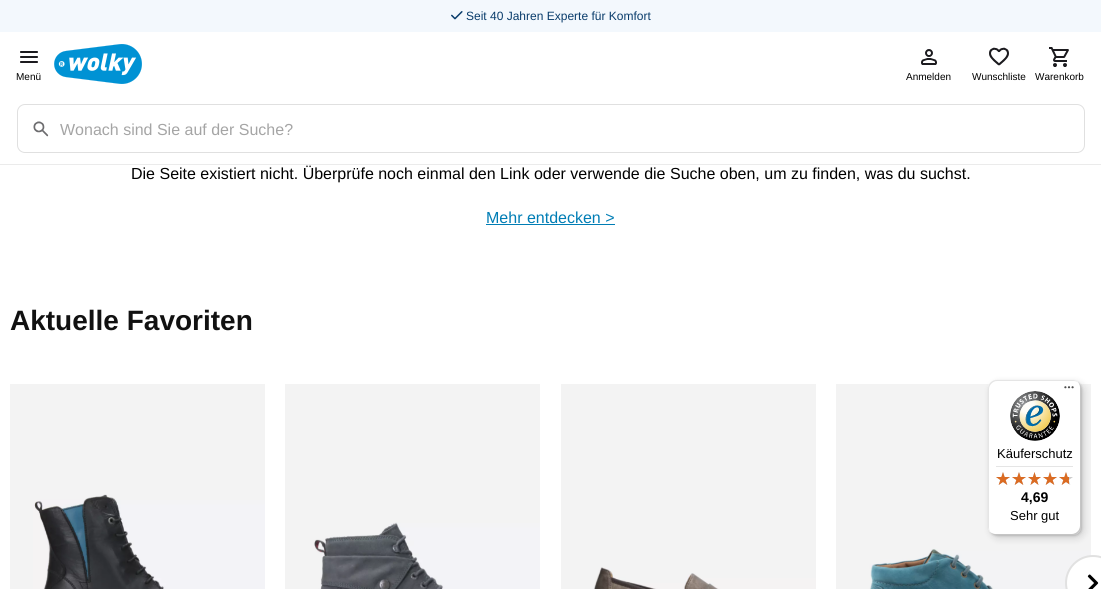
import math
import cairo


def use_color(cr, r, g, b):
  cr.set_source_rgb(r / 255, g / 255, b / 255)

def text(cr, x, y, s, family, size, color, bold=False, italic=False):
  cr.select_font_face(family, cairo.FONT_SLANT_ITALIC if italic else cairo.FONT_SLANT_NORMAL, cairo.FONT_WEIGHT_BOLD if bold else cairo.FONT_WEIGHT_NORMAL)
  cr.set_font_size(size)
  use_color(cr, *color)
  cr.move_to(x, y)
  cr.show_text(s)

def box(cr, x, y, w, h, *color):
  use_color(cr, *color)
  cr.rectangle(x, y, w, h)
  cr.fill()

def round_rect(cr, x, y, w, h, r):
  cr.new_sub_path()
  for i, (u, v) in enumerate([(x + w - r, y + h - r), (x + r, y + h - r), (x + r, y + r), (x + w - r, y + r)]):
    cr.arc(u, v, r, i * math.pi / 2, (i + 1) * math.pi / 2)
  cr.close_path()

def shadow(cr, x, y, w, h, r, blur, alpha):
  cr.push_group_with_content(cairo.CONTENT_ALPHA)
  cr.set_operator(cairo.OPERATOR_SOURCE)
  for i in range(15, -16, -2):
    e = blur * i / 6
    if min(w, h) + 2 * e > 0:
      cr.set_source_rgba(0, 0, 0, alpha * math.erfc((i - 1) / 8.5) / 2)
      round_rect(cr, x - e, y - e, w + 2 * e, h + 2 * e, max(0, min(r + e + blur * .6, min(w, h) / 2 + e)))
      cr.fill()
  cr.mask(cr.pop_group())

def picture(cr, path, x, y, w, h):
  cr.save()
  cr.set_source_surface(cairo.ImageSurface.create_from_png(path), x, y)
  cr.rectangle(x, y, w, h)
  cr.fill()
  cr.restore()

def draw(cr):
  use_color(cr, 255, 255, 255)
  cr.paint()
  box(cr, 0, 0, 1101, 32, 243, 248, 253)
  picture(cr, "img_01.png", 451, 11, 12, 9)
  picture(cr, "img_02.png", 20, 51, 18, 12)
  picture(cr, "img_03.png", 54, 44, 88, 40)
  picture(cr, "img_04.png", 921, 49, 16, 16)
  picture(cr, "img_05.png", 989, 47, 20, 19)
  picture(cr, "img_06.png", 1049, 47, 20, 20)
  box(cr, 0, 164, 1101, 1, 235, 235, 235)
  round_rect(cr, 17.5, 104.5, 1067, 48, 7.5)
  use_color(cr, 224, 224, 224)
  cr.set_line_width(1)
  cr.stroke()
  picture(cr, "img_07.png", 33, 121, 16, 16)
  box(cr, 486, 224, 129, 1, 0, 125, 181)
  picture(cr, "img_08.png", 10, 384, 255, 205)
  picture(cr, "img_09.png", 285, 384, 255, 205)
  picture(cr, "img_10.png", 561, 384, 255, 205)
  picture(cr, "img_11.png", 836, 384, 255, 205)
  use_color(cr, 255, 255, 255)
  cr.arc(1093, 583, 27, 0, 2 * math.pi)
  cr.fill_preserve()
  use_color(cr, 225, 225, 225)
  cr.set_line_width(2)
  cr.stroke()
  picture(cr, "img_12.png", 1087, 574, 12, 15)
  use_color(cr, 0, 0, 0)
  shadow(cr, 991, 383, 93, 155, 8, 4, 0.15)
  shadow(cr, 989, 381, 93, 155, 8, 1, 0.15)
  use_color(cr, 255, 255, 255)
  round_rect(cr, 988, 380, 93, 155, 8)
  cr.fill()
  use_color(cr, 229, 229, 229)
  cr.new_path()
  cr.move_to(997, 381)
  cr.line_to(1074, 381)
  cr.curve_to(1076, 381, 1078, 382, 1080, 384)
  cr.curve_to(1078, 382, 1076, 380, 1073, 380)
  cr.line_to(996, 380)
  cr.curve_to(992, 380, 988, 384, 988, 388)
  cr.line_to(988, 527)
  cr.curve_to(988, 530, 990, 532, 992, 534)
  cr.curve_to(990, 532, 989, 530, 989, 528)
  cr.line_to(989, 389)
  cr.curve_to(989, 385, 993, 381, 997, 381)
  cr.close_path()
  cr.fill()
  cr.set_source_rgba(0, 0, 0, 0.2)
  cr.new_path()
  cr.move_to(989, 531)
  cr.curve_to(991, 533, 993, 535, 996, 535)
  cr.line_to(1073, 535)
  cr.curve_to(1077, 535, 1081, 531, 1081, 527)
  cr.line_to(1081, 388)
  cr.curve_to(1081, 385, 1079, 383, 1077, 381)
  cr.curve_to(1079, 383, 1080, 385, 1080, 387)
  cr.line_to(1080, 526)
  cr.curve_to(1080, 530, 1076, 534, 1072, 534)
  cr.line_to(995, 534)
  cr.curve_to(993, 534, 991, 533, 989, 531)
  cr.close_path()
  cr.fill()
  cr.set_source_rgba(0.196, 0.196, 0.196, 0.2)
  cr.new_path()
  cr.move_to(990, 532)
  cr.curve_to(991, 534, 994, 535, 996, 535)
  cr.line_to(1073, 535)
  cr.curve_to(1077, 535, 1081, 531, 1081, 527)
  cr.line_to(1081, 388)
  cr.curve_to(1081, 386, 1080, 383, 1078, 382)
  cr.curve_to(1079, 383, 1080, 385, 1080, 387)
  cr.line_to(1080, 526)
  cr.curve_to(1080, 531, 1077, 534, 1072, 534)
  cr.line_to(995, 534)
  cr.curve_to(993, 534, 991, 533, 990, 532)
  cr.close_path()
  cr.fill()
  cr.set_source_rgba(1, 1, 1, 0.3)
  cr.new_path()
  cr.move_to(1080, 388)
  cr.curve_to(1080, 383, 1077, 380, 1072, 380)
  cr.line_to(1073, 380)
  cr.curve_to(1077, 380, 1081, 384, 1081, 388)
  cr.line_to(1081, 527)
  cr.curve_to(1081, 531, 1077, 535, 1073, 535)
  cr.line_to(996, 535)
  cr.curve_to(992, 535, 988, 531, 988, 527)
  cr.line_to(988, 526)
  cr.curve_to(988, 531, 991, 534, 996, 534)
  cr.line_to(1072, 534)
  cr.curve_to(1077, 534, 1080, 531, 1080, 526)
  cr.close_path()
  cr.fill()
  picture(cr, "img_13.png", 1064, 386, 10, 3)
  picture(cr, "img_14.png", 1010, 391, 50, 50)
  box(cr, 996, 466, 77, 1, 229, 229, 229)
  picture(cr, "img_15.png", 996, 472, 14, 13)
  picture(cr, "img_15.png", 1012, 472, 14, 13)
  picture(cr, "img_16.png", 1028, 472, 13, 13)
  picture(cr, "img_15.png", 1043, 472, 14, 13)
  picture(cr, "img_15.png", 1059, 472, 14, 13)
  picture(cr, "img_17.png", 996, 472, 14, 13)
  picture(cr, "img_17.png", 1012, 472, 14, 13)
  picture(cr, "img_18.png", 1028, 472, 13, 13)
  picture(cr, "img_17.png", 1043, 472, 14, 13)
  picture(cr, "img_19.png", 1059, 472, 10, 13)
  text(cr, 466, 20, "Seit 40 Jahren Experte für Komfort", "Liberation Sans", 12, (9, 60, 107))
  text(cr, 16, 80, "Menü", "Liberation Sans", 10, (0, 0, 0))
  text(cr, 906, 80, "Anmelden", "Liberation Sans", 10, (0, 0, 0))
  text(cr, 972, 80, "Wunschliste", "Liberation Sans", 10, (0, 0, 0))
  text(cr, 1035, 80, "Warenkorb", "Liberation Sans", 10, (0, 0, 0))
  text(cr, 60, 135, "Wonach sind Sie auf der Suche?", "Liberation Sans", 16, (165, 165, 165))
  text(cr, 131, 179, "Die Seite existiert nicht. Überprüfe noch einmal den Link oder verwende die Suche oben, um zu finden, was du suchst.", "Liberation Sans", 16, (0, 0, 0))
  text(cr, 486, 223, "Mehr entdecken >", "Liberation Sans", 16, (0, 125, 181))
  text(cr, 10, 330, "Aktuelle Favoriten", "Liberation Sans", 28, (17, 17, 17), bold=True)
  text(cr, 997, 458, "Käuferschutz", "Liberation Sans", 13, (0, 0, 0))
  text(cr, 1021, 502, "4,69", "Liberation Sans", 14, (0, 0, 0), bold=True)
  text(cr, 1010, 520, "Sehr gut", "Liberation Sans", 13, (0, 0, 0))


surface = cairo.ImageSurface(cairo.FORMAT_RGB24, 1101, 589)
cr = cairo.Context(surface)
options = cairo.FontOptions()
options.set_hint_metrics(cairo.HINT_METRICS_OFF)
options.set_hint_style(cairo.HINT_STYLE_NONE)
cr.set_font_options(options)
cr.set_miter_limit(4)
draw(cr)
surface.write_to_png("out.png")
